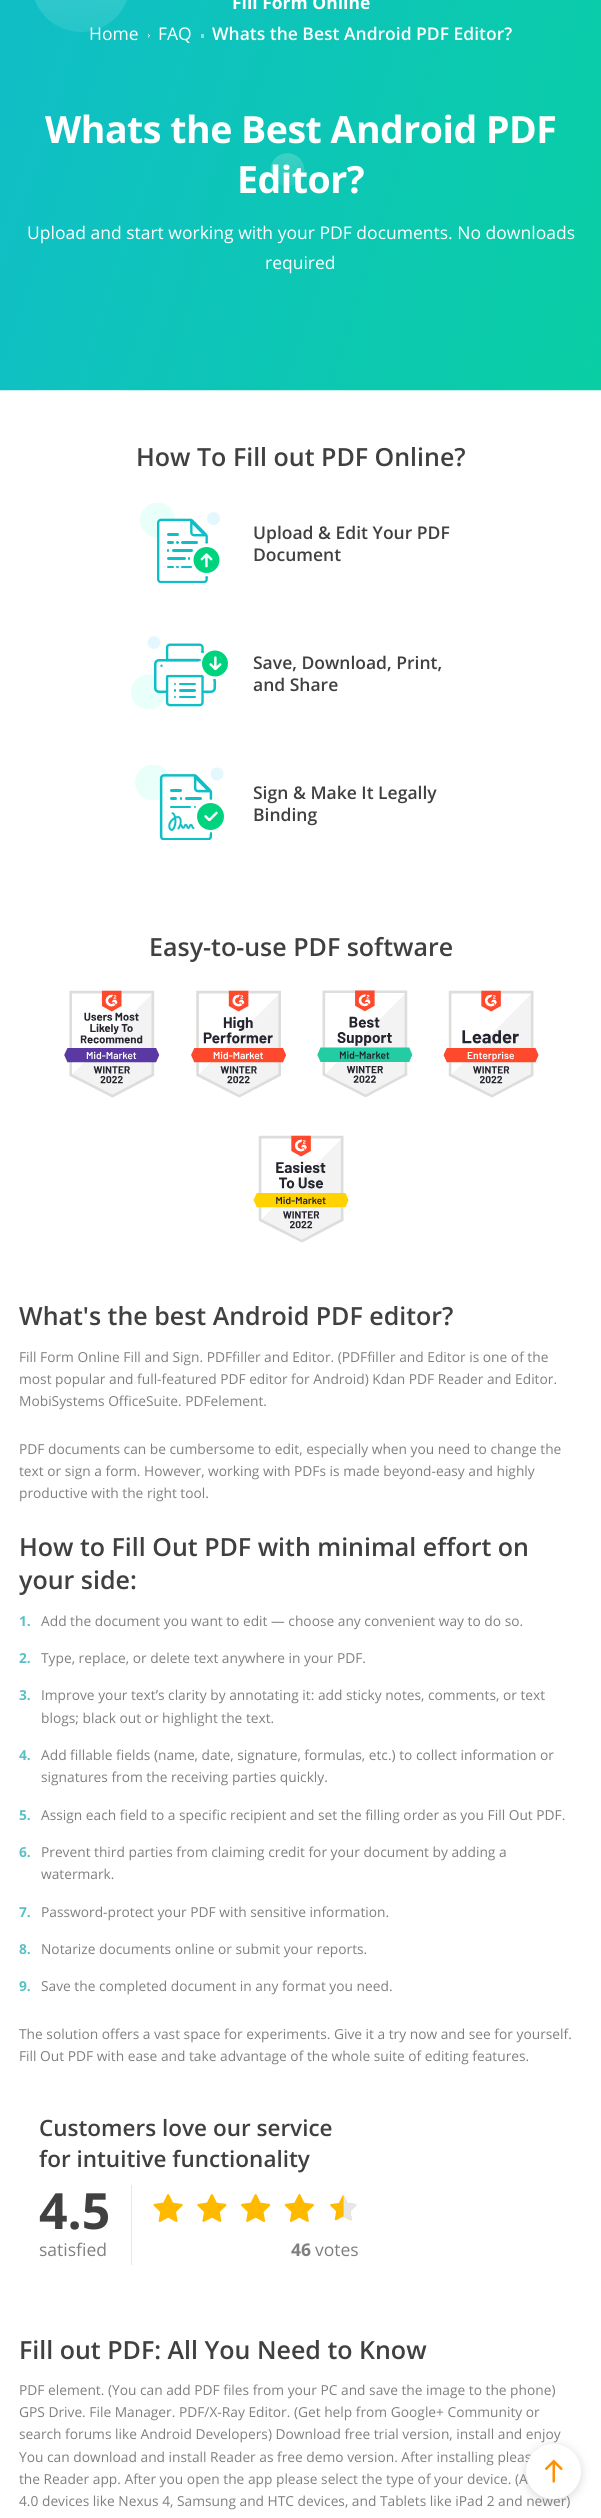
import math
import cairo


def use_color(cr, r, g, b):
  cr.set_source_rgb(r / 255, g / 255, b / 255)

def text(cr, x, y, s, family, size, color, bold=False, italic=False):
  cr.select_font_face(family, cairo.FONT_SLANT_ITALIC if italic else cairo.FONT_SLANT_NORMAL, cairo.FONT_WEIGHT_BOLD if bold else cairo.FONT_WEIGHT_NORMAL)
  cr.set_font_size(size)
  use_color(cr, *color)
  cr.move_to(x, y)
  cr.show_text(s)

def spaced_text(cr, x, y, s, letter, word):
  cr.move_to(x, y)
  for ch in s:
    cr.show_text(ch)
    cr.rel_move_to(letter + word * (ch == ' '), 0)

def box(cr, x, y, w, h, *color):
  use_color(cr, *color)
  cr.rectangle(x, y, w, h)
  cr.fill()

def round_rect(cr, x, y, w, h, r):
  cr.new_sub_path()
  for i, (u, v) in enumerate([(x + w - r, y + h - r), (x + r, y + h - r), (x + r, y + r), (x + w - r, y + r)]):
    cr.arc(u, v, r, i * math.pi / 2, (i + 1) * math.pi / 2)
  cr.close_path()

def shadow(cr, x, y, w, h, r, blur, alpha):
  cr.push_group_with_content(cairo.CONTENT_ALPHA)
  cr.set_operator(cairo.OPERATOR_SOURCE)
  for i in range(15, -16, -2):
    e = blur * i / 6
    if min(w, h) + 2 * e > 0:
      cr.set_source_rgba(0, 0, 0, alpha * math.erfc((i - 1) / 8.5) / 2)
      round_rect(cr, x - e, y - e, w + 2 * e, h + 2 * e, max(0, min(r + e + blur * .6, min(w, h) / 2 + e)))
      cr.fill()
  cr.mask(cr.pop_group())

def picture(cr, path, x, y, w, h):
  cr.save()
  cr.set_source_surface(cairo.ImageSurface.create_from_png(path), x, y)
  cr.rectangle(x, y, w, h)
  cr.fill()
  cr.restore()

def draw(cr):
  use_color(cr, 255, 255, 255)
  cr.paint()
  picture(cr, "img_01.png", 0, 0, 601, 391)
  picture(cr, "img_02.png", 148, 34, 2, 4)
  box(cr, 201, 34, 3, 4, 135, 225, 222)
  picture(cr, "img_03.png", 140, 503, 80, 80)
  picture(cr, "img_04.png", 131, 636, 97, 73)
  picture(cr, "img_05.png", 135, 765, 89, 75)
  picture(cr, "img_06.png", 64, 990, 96, 108)
  picture(cr, "img_07.png", 191, 990, 95, 108)
  picture(cr, "img_08.png", 317, 990, 96, 108)
  picture(cr, "img_09.png", 443, 990, 96, 108)
  picture(cr, "img_10.png", 253, 1135, 96, 108)
  box(cr, 131, 2185, 1, 80, 231, 231, 231)
  picture(cr, "img_11.png", 153, 2194, 30, 28)
  picture(cr, "img_12.png", 197, 2194, 30, 28)
  picture(cr, "img_13.png", 241, 2194, 30, 28)
  picture(cr, "img_14.png", 284, 2194, 30, 28)
  picture(cr, "img_15.png", 330, 2195, 27, 26)
  use_color(cr, 47, 55, 62)
  shadow(cr, 526, 2446, 55, 55, 27.5, 5, 0.2)
  text(cr, 232, 9, "Fill Form Online", "Open Sans", 17.5, (255, 255, 255), bold=True)
  text(cr, 89, 40, "Home", "Open Sans", 17.5, (255, 255, 255))
  text(cr, 158, 40, "FAQ", "Open Sans", 17.5, (255, 255, 255))
  text(cr, 212, 40, "Whats the Best Android PDF Editor?", "Open Sans SemiBold", 17.5, (255, 255, 255))
  cr.select_font_face("Open Sans", cairo.FONT_SLANT_NORMAL, cairo.FONT_WEIGHT_BOLD)
  cr.set_font_size(37.5)
  spaced_text(cr, 45, 143, "Whats the Best Android PDF", -0.5, 0)
  spaced_text(cr, 237, 193, "Editor?", -0.5, 0)
  text(cr, 27, 239, "Upload and start working with your PDF documents. No downloads", "Open Sans", 17.5, (255, 255, 255))
  text(cr, 265, 269, "required", "Open Sans", 17.5, (255, 255, 255))
  text(cr, 136, 466, "How To Fill out PDF Online?", "Open Sans SemiBold", 25, (64, 64, 64))
  text(cr, 253, 539, "Upload & Edit Your PDF", "Open Sans SemiBold", 17.5, (64, 64, 64))
  text(cr, 253, 561, "Document", "Open Sans SemiBold", 17.5, (64, 64, 64))
  text(cr, 253, 669, "Save, Download, Print,", "Open Sans SemiBold", 17.5, (64, 64, 64))
  text(cr, 253, 691, "and Share", "Open Sans SemiBold", 17.5, (64, 64, 64))
  text(cr, 253, 799, "Sign & Make It Legally", "Open Sans SemiBold", 17.5, (64, 64, 64))
  text(cr, 253, 821, "Binding", "Open Sans SemiBold", 17.5, (64, 64, 64))
  text(cr, 149, 956, "Easy-to-use PDF software", "Open Sans SemiBold", 25, (64, 64, 64))
  text(cr, 19, 1325, "What's the best Android PDF editor?", "Open Sans SemiBold", 25, (64, 64, 64))
  text(cr, 19, 1362, "Fill Form Online Fill and Sign. PDFfiller and Editor. (PDFfiller and Editor is one of the", "Open Sans", 13.75, (127, 127, 127))
  text(cr, 19, 1384, "most popular and full-featured PDF editor for Android) Kdan PDF Reader and Editor.", "Open Sans", 13.75, (127, 127, 127))
  text(cr, 19, 1406, "MobiSystems OfficeSuite. PDFelement.", "Open Sans", 13.75, (127, 127, 127))
  text(cr, 19, 1454, "PDF documents can be cumbersome to edit, especially when you need to change the", "Open Sans", 13.75, (127, 127, 127))
  text(cr, 19, 1476, "text or sign a form. However, working with PDFs is made beyond-easy and highly", "Open Sans", 13.75, (127, 127, 127))
  text(cr, 19, 1498, "productive with the right tool.", "Open Sans", 13.75, (127, 127, 127))
  text(cr, 19, 1556, "How to Fill Out PDF with minimal effort on", "Open Sans SemiBold", 25, (64, 64, 64))
  text(cr, 19, 1589, "your side:", "Open Sans SemiBold", 25, (64, 64, 64))
  text(cr, 19, 1626, "1.", "Open Sans", 13.75, (89, 192, 197), bold=True)
  text(cr, 41, 1626, "Add the document you want to edit — choose any convenient way to do so.", "Open Sans", 13.75, (127, 127, 127))
  text(cr, 19, 1663, "2.", "Open Sans", 13.75, (89, 192, 197), bold=True)
  text(cr, 41, 1663, "Type, replace, or delete text anywhere in your PDF.", "Open Sans", 13.75, (127, 127, 127))
  text(cr, 19, 1700, "3.", "Open Sans", 13.75, (89, 192, 197), bold=True)
  text(cr, 41, 1700, "Improve your text’s clarity by annotating it: add sticky notes, comments, or text", "Open Sans", 13.75, (127, 127, 127))
  text(cr, 41, 1723, "blogs; black out or highlight the text.", "Open Sans", 13.75, (127, 127, 127))
  text(cr, 19, 1760, "4.", "Open Sans", 13.75, (89, 192, 197), bold=True)
  text(cr, 41, 1760, "Add fillable fields (name, date, signature, formulas, etc.) to collect information or", "Open Sans", 13.75, (127, 127, 127))
  text(cr, 41, 1782, "signatures from the receiving parties quickly.", "Open Sans", 13.75, (127, 127, 127))
  text(cr, 19, 1820, "5.", "Open Sans", 13.75, (89, 192, 197), bold=True)
  text(cr, 41, 1820, "Assign each field to a specific recipient and set the filling order as you Fill Out PDF.", "Open Sans", 13.75, (127, 127, 127))
  text(cr, 19, 1857, "6.", "Open Sans", 13.75, (89, 192, 197), bold=True)
  text(cr, 41, 1857, "Prevent third parties from claiming credit for your document by adding a", "Open Sans", 13.75, (127, 127, 127))
  text(cr, 41, 1879, "watermark.", "Open Sans", 13.75, (127, 127, 127))
  text(cr, 19, 1917, "7.", "Open Sans", 13.75, (89, 192, 197), bold=True)
  text(cr, 41, 1917, "Password-protect your PDF with sensitive information.", "Open Sans", 13.75, (127, 127, 127))
  text(cr, 19, 1954, "8.", "Open Sans", 13.75, (89, 192, 197), bold=True)
  text(cr, 41, 1954, "Notarize documents online or submit your reports.", "Open Sans", 13.75, (127, 127, 127))
  text(cr, 19, 1991, "9.", "Open Sans", 13.75, (89, 192, 197), bold=True)
  text(cr, 41, 1991, "Save the completed document in any format you need.", "Open Sans", 13.75, (127, 127, 127))
  text(cr, 19, 2039, "The solution offers a vast space for experiments. Give it a try now and see for yourself.", "Open Sans", 13.75, (127, 127, 127))
  text(cr, 19, 2061, "Fill Out PDF with ease and take advantage of the whole suite of editing features.", "Open Sans", 13.75, (127, 127, 127))
  text(cr, 39, 2136, "Customers love our service", "Open Sans SemiBold", 22.5, (64, 64, 64))
  text(cr, 39, 2167, "for intuitive functionality", "Open Sans SemiBold", 22.5, (64, 64, 64))
  text(cr, 39, 2229, "4.5", "Open Sans", 50, (64, 64, 64), bold=True)
  text(cr, 39, 2256, "satisfied", "Open Sans", 17.5, (127, 127, 127))
  text(cr, 291, 2256, "46", "Open Sans", 17.5, (127, 127, 127), bold=True)
  text(cr, 315, 2256, "votes", "Open Sans", 17.5, (127, 127, 127))
  text(cr, 19, 2359, "Fill out PDF: All You Need to Know", "Open Sans SemiBold", 25, (64, 64, 64))
  text(cr, 19, 2395, "PDF element. (You can add PDF files from your PC and save the image to the phone)", "Open Sans", 13.75, (127, 127, 127))
  text(cr, 19, 2417, "GPS Drive. File Manager. PDF/X-Ray Editor. (Get help from Google+ Community or", "Open Sans", 13.75, (127, 127, 127))
  text(cr, 19, 2439, "search forums like Android Developers) Download free trial version, install and enjoy", "Open Sans", 13.75, (127, 127, 127))
  text(cr, 19, 2462, "You can download and install Reader as free demo version. After installing pleas", "Open Sans", 13.75, (127, 127, 127))
  text(cr, 19, 2484, "the Reader app. After you open the app please select the type of your device. (A", "Open Sans", 13.75, (127, 127, 127))
  text(cr, 19, 2506, "4.0 devices like Nexus 4, Samsung and HTC devices, and Tablets like iPad 2 and newer)", "Open Sans", 13.75, (127, 127, 127))
  use_color(cr, 255, 255, 255)
  cr.new_path()
  cr.arc(553.5, 2471.5, 27.5, 0, 2 * math.pi)
  cr.fill()
  picture(cr, "img_16.png", 545, 2459, 18, 24)


surface = cairo.ImageSurface(cairo.FORMAT_RGB24, 601, 2518)
cr = cairo.Context(surface)
options = cairo.FontOptions()
options.set_hint_metrics(cairo.HINT_METRICS_OFF)
options.set_hint_style(cairo.HINT_STYLE_NONE)
cr.set_font_options(options)
cr.set_miter_limit(4)
draw(cr)
surface.write_to_png("out.png")
